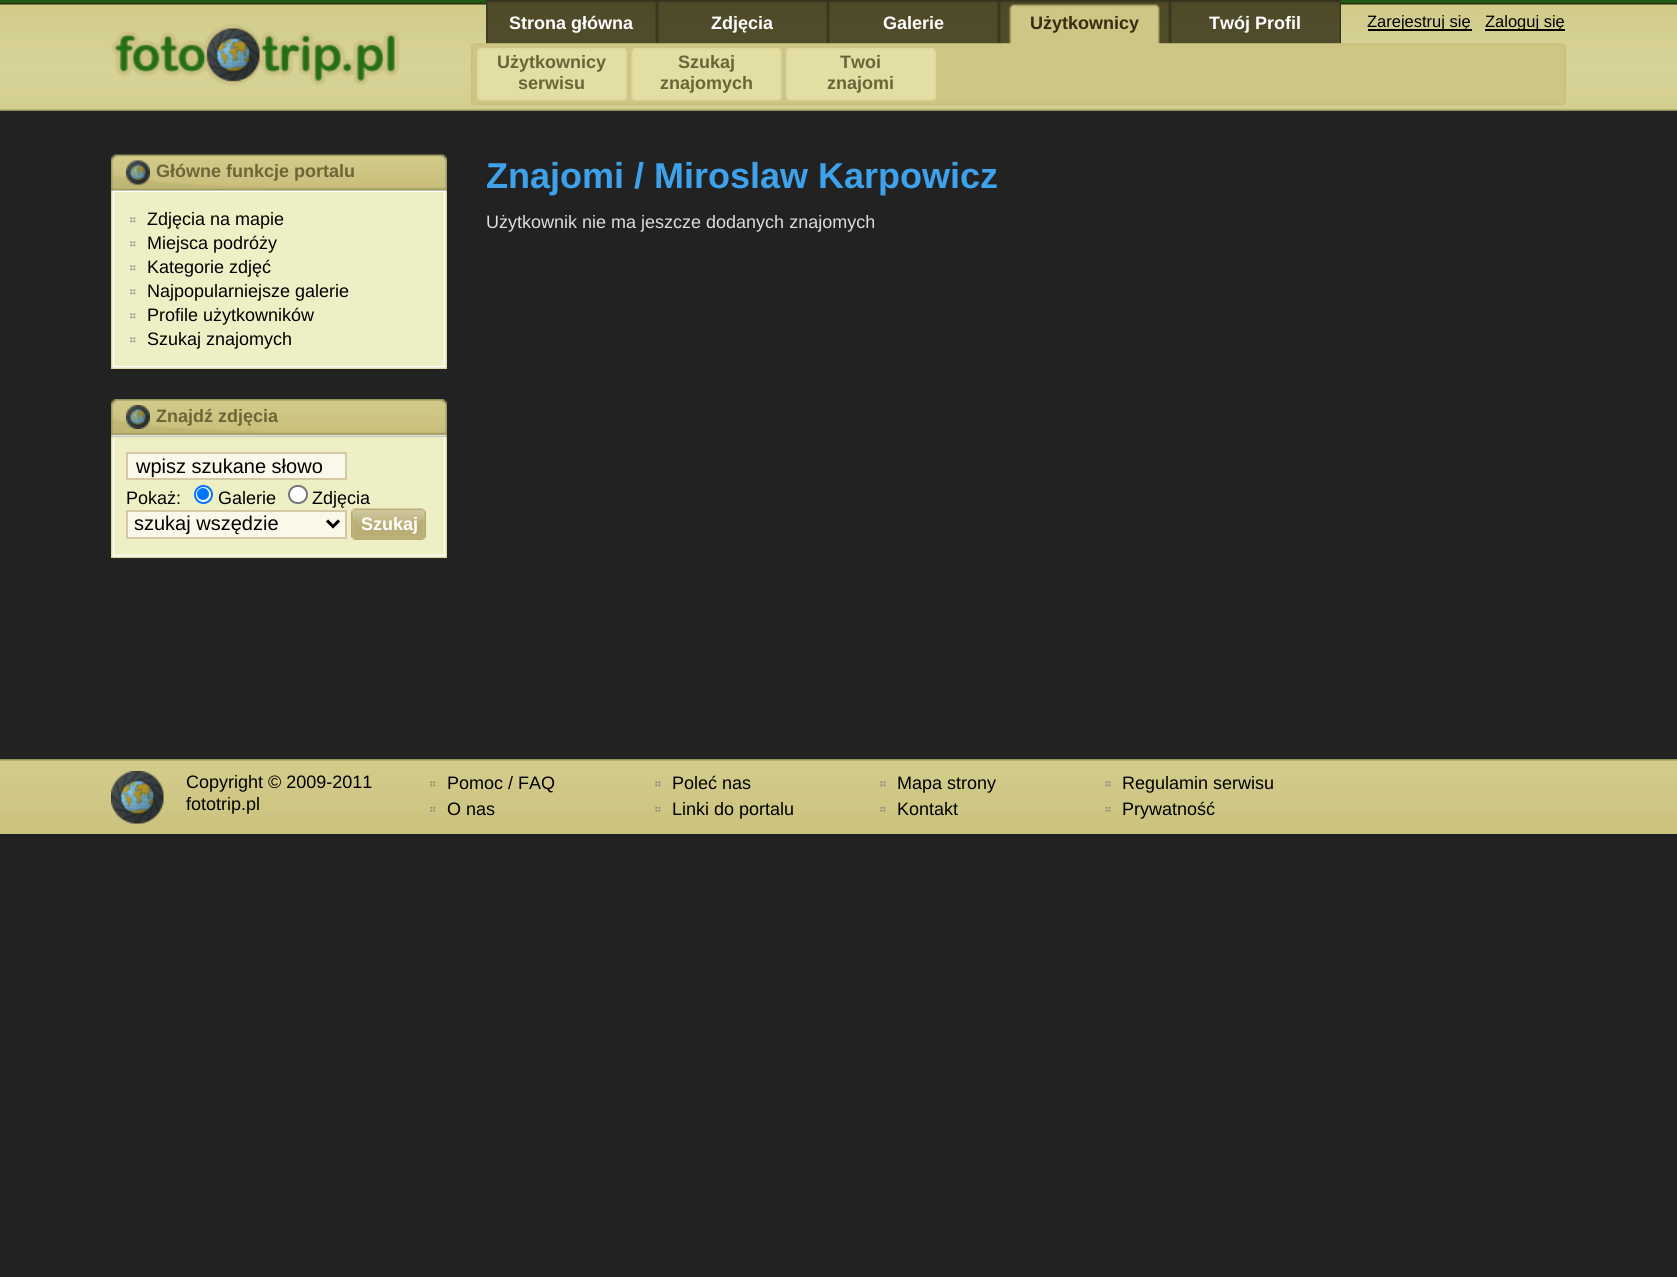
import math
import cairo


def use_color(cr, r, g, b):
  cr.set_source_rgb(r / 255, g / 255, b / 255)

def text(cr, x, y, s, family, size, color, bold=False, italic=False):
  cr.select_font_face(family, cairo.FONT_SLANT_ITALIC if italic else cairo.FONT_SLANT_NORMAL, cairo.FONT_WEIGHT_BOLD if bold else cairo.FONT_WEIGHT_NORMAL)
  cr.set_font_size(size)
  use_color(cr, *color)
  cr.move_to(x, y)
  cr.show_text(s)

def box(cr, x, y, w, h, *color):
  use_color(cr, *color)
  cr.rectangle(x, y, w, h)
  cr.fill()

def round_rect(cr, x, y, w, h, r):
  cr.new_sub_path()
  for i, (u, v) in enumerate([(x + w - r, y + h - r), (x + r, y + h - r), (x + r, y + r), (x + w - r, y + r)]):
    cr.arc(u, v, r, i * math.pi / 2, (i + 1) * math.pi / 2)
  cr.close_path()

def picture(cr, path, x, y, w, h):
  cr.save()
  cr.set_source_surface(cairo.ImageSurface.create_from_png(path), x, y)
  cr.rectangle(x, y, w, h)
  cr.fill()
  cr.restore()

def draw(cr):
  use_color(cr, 34, 34, 34)
  cr.paint()
  picture(cr, "img_01.png", 0, 0, 1677, 111)
  picture(cr, "img_02.png", 111, 24, 288, 62)
  picture(cr, "img_03.png", 486, 0, 171, 44)
  picture(cr, "img_04.png", 657, 0, 171, 44)
  picture(cr, "img_04.png", 828, 0, 171, 44)
  picture(cr, "img_05.png", 999, 0, 171, 44)
  picture(cr, "img_06.png", 1170, 0, 171, 44)
  box(cr, 1368, 29, 104, 2, 0, 0, 0)
  box(cr, 1485, 29, 80, 2, 0, 0, 0)
  picture(cr, "img_07.png", 471, 43, 1095, 62)
  picture(cr, "img_08.png", 477, 48, 150, 53)
  picture(cr, "img_09.png", 631, 48, 151, 53)
  picture(cr, "img_10.png", 786, 48, 150, 53)
  picture(cr, "img_11.png", 111, 154, 336, 38)
  picture(cr, "img_12.png", 126, 160, 24, 25)
  picture(cr, "img_13.png", 111, 192, 336, 174)
  picture(cr, "img_14.png", 130, 217, 6, 6)
  picture(cr, "img_14.png", 130, 241, 6, 6)
  picture(cr, "img_14.png", 130, 265, 6, 6)
  picture(cr, "img_14.png", 130, 289, 6, 6)
  picture(cr, "img_14.png", 130, 313, 6, 6)
  picture(cr, "img_14.png", 130, 337, 6, 6)
  picture(cr, "img_15.png", 111, 366, 336, 3)
  picture(cr, "img_18.png", 111, 436, 336, 119)
  picture(cr, "img_16.png", 111, 399, 336, 38)
  picture(cr, "img_17.png", 126, 405, 24, 24)
  use_color(cr, 249, 248, 233)
  cr.rectangle(127, 453, 219, 26)
  cr.fill_preserve()
  use_color(cr, 212, 201, 164)
  cr.stroke()
  use_color(cr, 255, 255, 255)
  cr.arc(203.5, 494.5, 8.5, 0, 2 * math.pi)
  cr.fill_preserve()
  use_color(cr, 0, 117, 255)
  cr.stroke()
  cr.arc(203, 494, 6, 0, 2 * math.pi)
  cr.fill()
  use_color(cr, 255, 255, 255)
  round_rect(cr, 289, 486, 18, 17, 8.5)
  cr.fill_preserve()
  use_color(cr, 118, 118, 118)
  cr.stroke()
  use_color(cr, 249, 248, 233)
  cr.rectangle(127, 511, 219, 27)
  cr.fill_preserve()
  use_color(cr, 212, 201, 164)
  cr.stroke()
  cr.new_path()
  cr.move_to(327, 520.5)
  cr.line_to(333, 526.5)
  cr.line_to(339, 520.5)
  use_color(cr, 0, 0, 0)
  cr.set_line_width(3)
  cr.stroke()
  box(cr, 351, 509, 75, 31, 239, 239, 239)
  picture(cr, "img_19.png", 351, 508, 75, 32)
  picture(cr, "img_15.png", 111, 555, 336, 3)
  picture(cr, "img_20.png", 0, 759, 1677, 75)
  picture(cr, "img_21.png", 111, 771, 53, 53)
  picture(cr, "img_22.png", 430, 781, 6, 6)
  picture(cr, "img_23.png", 430, 806, 6, 6)
  picture(cr, "img_24.png", 655, 781, 6, 6)
  picture(cr, "img_25.png", 655, 806, 6, 6)
  picture(cr, "img_24.png", 880, 781, 6, 6)
  picture(cr, "img_25.png", 880, 806, 6, 6)
  picture(cr, "img_22.png", 1105, 781, 6, 6)
  picture(cr, "img_23.png", 1105, 806, 6, 6)
  text(cr, 509, 29, "Strona główna", "Liberation Sans", 18, (255, 255, 255), bold=True)
  text(cr, 711, 29, "Zdjęcia", "Liberation Sans", 18, (255, 255, 255), bold=True)
  text(cr, 883, 29, "Galerie", "Liberation Sans", 18, (255, 255, 255), bold=True)
  text(cr, 1030, 29, "Użytkownicy", "Liberation Sans", 18, (55, 45, 17), bold=True)
  text(cr, 1209, 29, "Twój Profil", "Liberation Sans", 18, (255, 255, 255), bold=True)
  text(cr, 1367, 27, "Zarejestruj się", "Liberation Sans", 16.5, (0, 0, 0))
  text(cr, 1485, 27, "Zaloguj się", "Liberation Sans", 16.5, (0, 0, 0))
  text(cr, 497, 68, "Użytkownicy", "Liberation Sans", 18, (108, 101, 56), bold=True)
  text(cr, 518, 89, "serwisu", "Liberation Sans", 18, (108, 101, 56), bold=True)
  text(cr, 678, 68, "Szukaj", "Liberation Sans", 18, (108, 101, 56), bold=True)
  text(cr, 660, 89, "znajomych", "Liberation Sans", 18, (108, 101, 56), bold=True)
  text(cr, 840, 68, "Twoi", "Liberation Sans", 18, (108, 101, 56), bold=True)
  text(cr, 827, 89, "znajomi", "Liberation Sans", 18, (108, 101, 56), bold=True)
  text(cr, 156, 177, "Główne funkcje portalu", "Liberation Sans", 18, (108, 101, 56), bold=True)
  text(cr, 147, 225, "Zdjęcia na mapie", "Liberation Sans", 18, (0, 0, 0))
  text(cr, 147, 249, "Miejsca podróży", "Liberation Sans", 18, (0, 0, 0))
  text(cr, 147, 273, "Kategorie zdjęć", "Liberation Sans", 18, (0, 0, 0))
  text(cr, 147, 297, "Najpopularniejsze galerie", "Liberation Sans", 18, (0, 0, 0))
  text(cr, 147, 321, "Profile użytkowników", "Liberation Sans", 18, (0, 0, 0))
  text(cr, 147, 345, "Szukaj znajomych", "Liberation Sans", 18, (0, 0, 0))
  text(cr, 156, 422, "Znajdź zdjęcia", "Liberation Sans", 18, (108, 101, 56), bold=True)
  text(cr, 136, 473, "wpisz szukane słowo", "Liberation Sans", 20, (0, 0, 0))
  text(cr, 126, 504, "Pokaż:", "Liberation Sans", 18, (0, 0, 0))
  text(cr, 218, 504, "Galerie", "Liberation Sans", 18, (0, 0, 0))
  text(cr, 312, 504, "Zdjęcia", "Liberation Sans", 18, (0, 0, 0))
  text(cr, 134, 530, "szukaj wszędzie", "Liberation Sans", 20, (0, 0, 0))
  text(cr, 361, 530, "Szukaj", "Liberation Sans", 18, (255, 255, 255), bold=True)
  text(cr, 486, 188, "Znajomi / Miroslaw Karpowicz", "Liberation Sans", 36, (61, 162, 235), bold=True)
  text(cr, 486, 228, "Użytkownik nie ma jeszcze dodanych znajomych", "Liberation Sans", 18, (221, 221, 221))
  text(cr, 186, 788, "Copyright © 2009-2011", "Liberation Sans", 18, (0, 0, 0))
  text(cr, 186, 810, "fototrip.pl", "Liberation Sans", 18, (0, 0, 0))
  text(cr, 447, 789, "Pomoc / FAQ", "Liberation Sans", 18, (0, 0, 0))
  text(cr, 447, 815, "O nas", "Liberation Sans", 18, (0, 0, 0))
  text(cr, 672, 789, "Poleć nas", "Liberation Sans", 18, (0, 0, 0))
  text(cr, 672, 815, "Linki do portalu", "Liberation Sans", 18, (0, 0, 0))
  text(cr, 897, 789, "Mapa strony", "Liberation Sans", 18, (0, 0, 0))
  text(cr, 897, 815, "Kontakt", "Liberation Sans", 18, (0, 0, 0))
  text(cr, 1122, 789, "Regulamin serwisu", "Liberation Sans", 18, (0, 0, 0))
  text(cr, 1122, 815, "Prywatność", "Liberation Sans", 18, (0, 0, 0))


surface = cairo.ImageSurface(cairo.FORMAT_RGB24, 1677, 1277)
cr = cairo.Context(surface)
options = cairo.FontOptions()
options.set_hint_metrics(cairo.HINT_METRICS_OFF)
options.set_hint_style(cairo.HINT_STYLE_NONE)
cr.set_font_options(options)
cr.set_miter_limit(4)
draw(cr)
surface.write_to_png("out.png")
